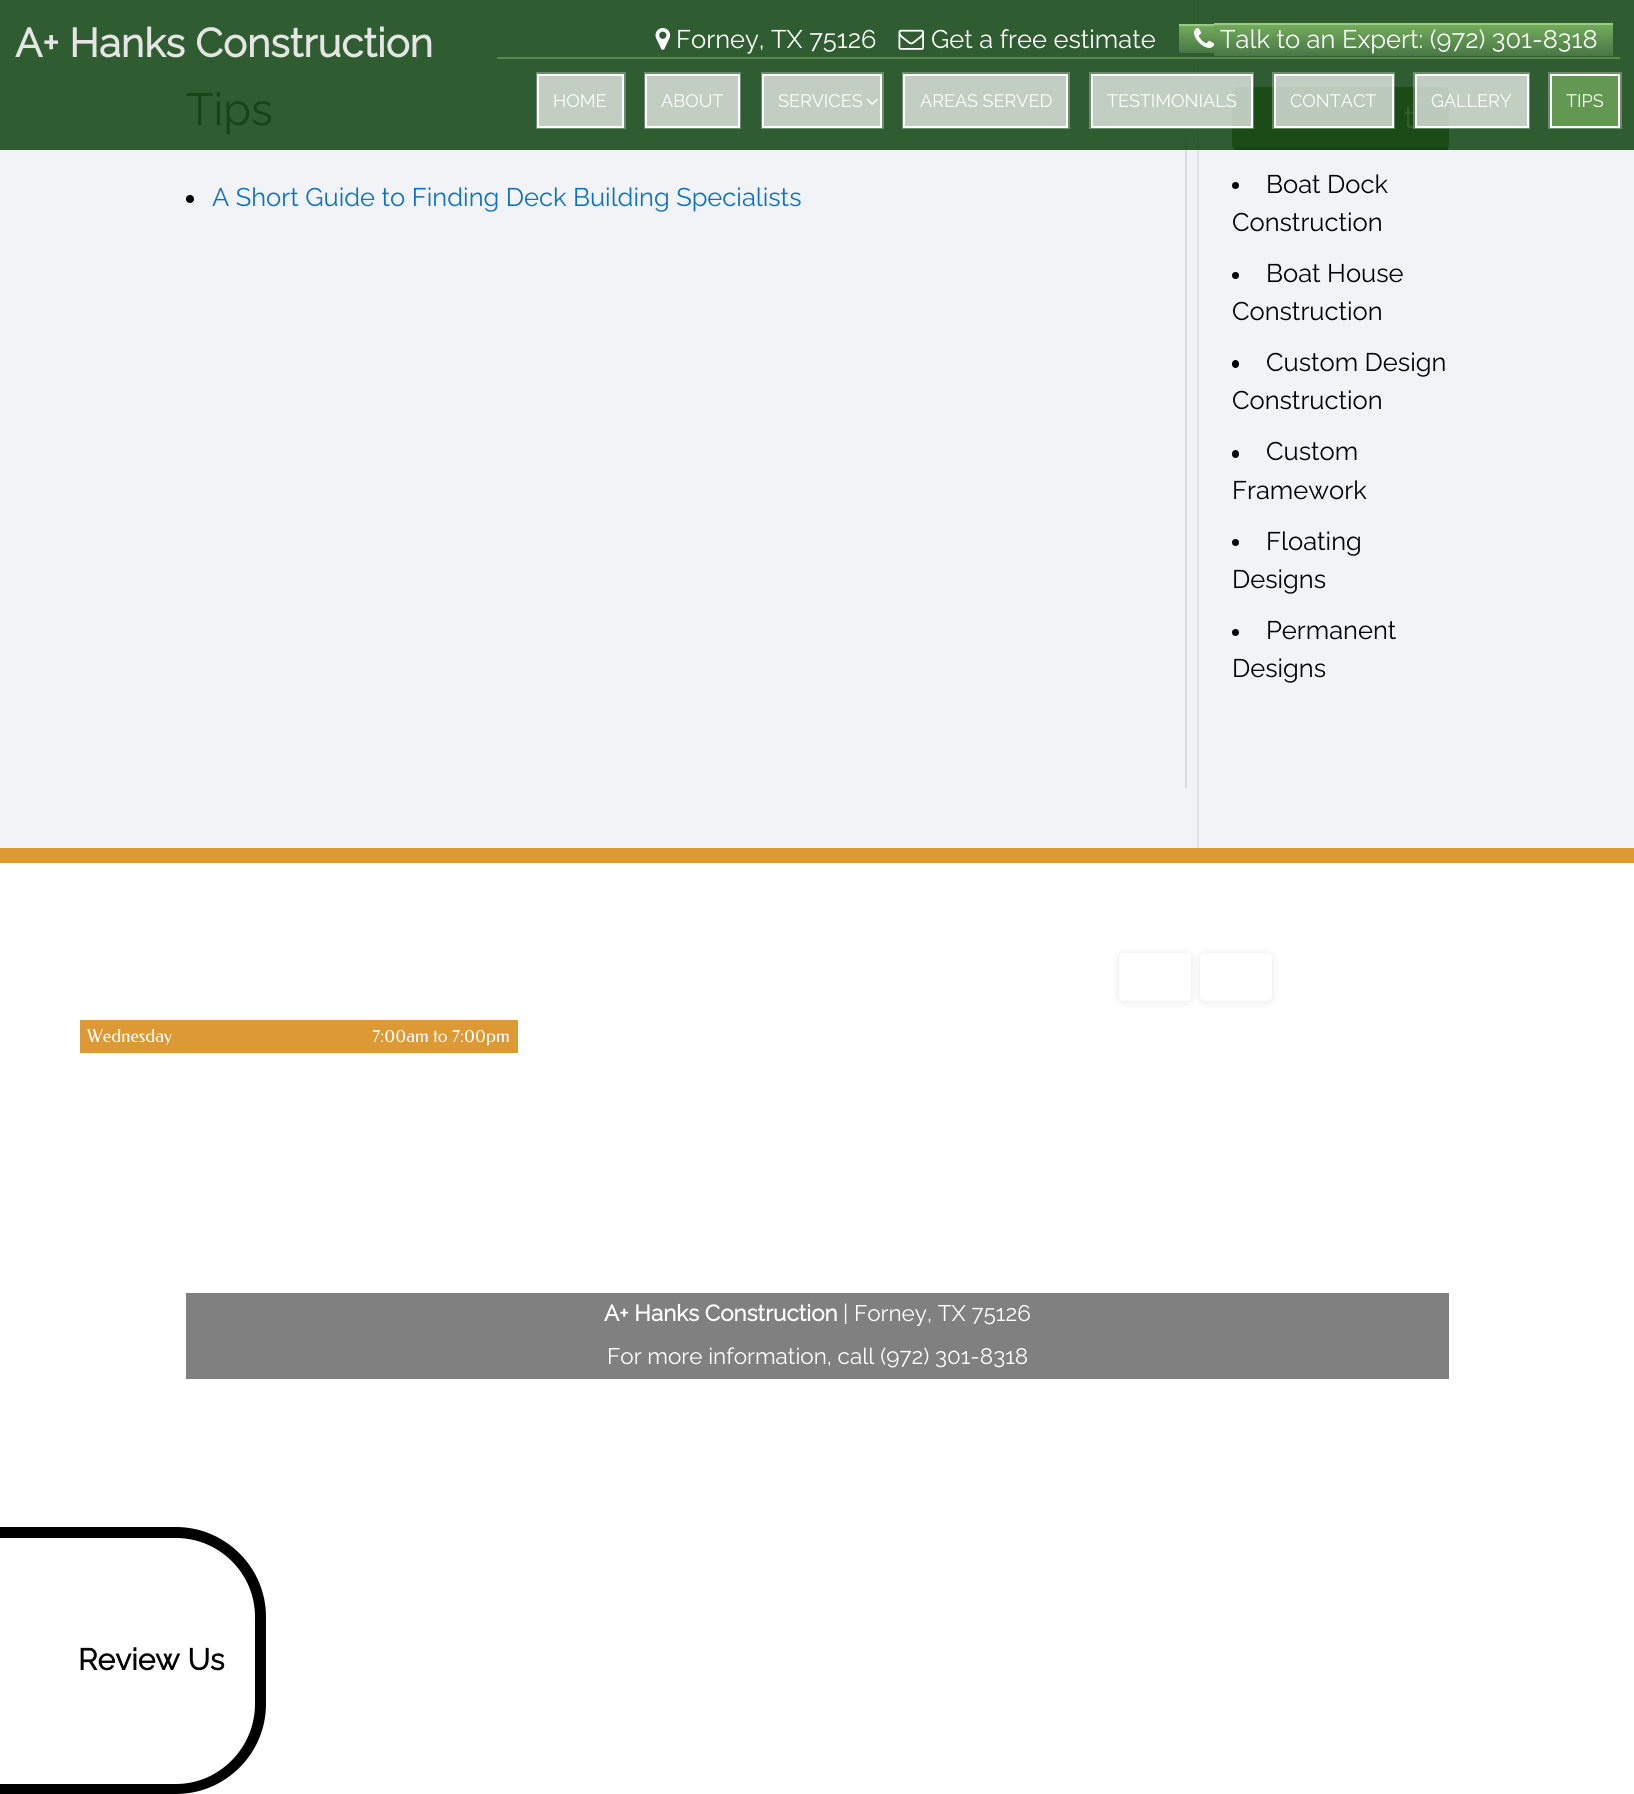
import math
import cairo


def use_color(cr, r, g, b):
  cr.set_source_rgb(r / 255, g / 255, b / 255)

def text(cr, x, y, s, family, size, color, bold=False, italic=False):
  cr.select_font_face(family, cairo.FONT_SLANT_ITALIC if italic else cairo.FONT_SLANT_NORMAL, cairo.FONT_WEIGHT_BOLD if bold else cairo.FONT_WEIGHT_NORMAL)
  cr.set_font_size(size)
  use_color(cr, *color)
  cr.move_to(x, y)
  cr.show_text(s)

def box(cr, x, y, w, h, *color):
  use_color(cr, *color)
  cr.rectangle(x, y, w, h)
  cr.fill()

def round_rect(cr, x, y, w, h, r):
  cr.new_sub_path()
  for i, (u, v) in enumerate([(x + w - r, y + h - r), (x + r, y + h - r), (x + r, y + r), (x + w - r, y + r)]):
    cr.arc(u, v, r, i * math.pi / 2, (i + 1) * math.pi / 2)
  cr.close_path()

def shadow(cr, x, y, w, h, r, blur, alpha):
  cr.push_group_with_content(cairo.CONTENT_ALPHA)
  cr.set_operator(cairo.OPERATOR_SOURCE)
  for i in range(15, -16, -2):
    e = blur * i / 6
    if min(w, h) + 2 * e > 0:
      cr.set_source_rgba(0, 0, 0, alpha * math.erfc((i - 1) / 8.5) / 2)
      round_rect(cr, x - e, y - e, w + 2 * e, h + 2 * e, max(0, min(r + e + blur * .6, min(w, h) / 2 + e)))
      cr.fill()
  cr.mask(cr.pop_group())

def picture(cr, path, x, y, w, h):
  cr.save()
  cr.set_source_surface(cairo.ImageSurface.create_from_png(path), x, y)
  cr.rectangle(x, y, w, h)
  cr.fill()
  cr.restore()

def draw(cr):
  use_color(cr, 255, 255, 255)
  cr.paint()
  box(cr, 0, 0, 1634, 150, 48, 92, 49)
  box(cr, 1197, 0, 2, 150, 46, 90, 46)
  box(cr, 497, 57, 1123, 2, 86, 136, 76)
  picture(cr, "img_01.png", 655, 28, 16, 22)
  picture(cr, "img_02.png", 898, 29, 26, 21)
  gradient = cairo.LinearGradient(1196, 24, 1196, 53)
  gradient.add_color_stop_rgba(0.05, 0.455, 0.678, 0.353, 1)
  gradient.add_color_stop_rgba(1, 0.282, 0.467, 0.275, 1)
  cr.set_source(gradient)
  cr.rectangle(1179, 26, 35, 27)
  cr.fill()
  box(cr, 1179, 24, 35, 2, 154, 204, 133)
  gradient = cairo.LinearGradient(1319, 22, 1319, 56)
  gradient.add_color_stop_rgba(0.05, 0.455, 0.678, 0.353, 1)
  gradient.add_color_stop_rgba(1, 0.282, 0.467, 0.275, 1)
  cr.set_source(gradient)
  cr.rectangle(1214, 25, 210, 31)
  cr.fill()
  box(cr, 1214, 23, 399, 2, 154, 204, 133)
  gradient = cairo.LinearGradient(1518, 22, 1518, 56)
  gradient.add_color_stop_rgba(0.05, 0.455, 0.678, 0.353, 1)
  gradient.add_color_stop_rgba(1, 0.282, 0.467, 0.275, 1)
  cr.set_source(gradient)
  cr.rectangle(1424, 25, 189, 31)
  cr.fill()
  picture(cr, "img_03.png", 1194, 28, 20, 20)
  use_color(cr, 193, 206, 193)
  cr.rectangle(538, 75, 85, 52)
  cr.fill_preserve()
  use_color(cr, 255, 255, 255)
  cr.stroke()
  cr.rectangle(537, 73, 88, 55)
  cr.set_source_rgba(1, 1, 1, 0.3)
  cr.stroke()
  use_color(cr, 193, 206, 193)
  cr.rectangle(646, 75, 93, 52)
  cr.fill_preserve()
  use_color(cr, 255, 255, 255)
  cr.stroke()
  cr.rectangle(645, 73, 95, 55)
  cr.set_source_rgba(1, 1, 1, 0.3)
  cr.stroke()
  use_color(cr, 193, 206, 193)
  cr.rectangle(763, 75, 118, 52)
  cr.fill_preserve()
  use_color(cr, 255, 255, 255)
  cr.stroke()
  cr.rectangle(762, 73, 121, 55)
  cr.set_source_rgba(1, 1, 1, 0.3)
  cr.stroke()
  picture(cr, "img_04.png", 866, 98, 12, 7)
  use_color(cr, 193, 206, 193)
  cr.rectangle(904, 75, 163, 52)
  cr.fill_preserve()
  use_color(cr, 255, 255, 255)
  cr.stroke()
  cr.rectangle(903, 73, 166, 55)
  cr.set_source_rgba(1, 1, 1, 0.3)
  cr.stroke()
  box(cr, 1185, 87, 2, 63, 46, 89, 46)
  use_color(cr, 27, 76, 24)
  round_rect(cr, 1232, 87, 217, 63, 5)
  cr.fill()
  cr.set_source_rgba(1, 1, 1, 0.7)
  cr.rectangle(1092, 75, 160, 52)
  cr.fill_preserve()
  use_color(cr, 255, 255, 255)
  cr.stroke()
  cr.rectangle(1090, 73, 163, 55)
  cr.set_source_rgba(1, 1, 1, 0.3)
  cr.stroke()
  cr.set_source_rgba(1, 1, 1, 0.7)
  cr.rectangle(1275, 75, 118, 52)
  cr.fill_preserve()
  use_color(cr, 255, 255, 255)
  cr.stroke()
  cr.rectangle(1273, 73, 121, 55)
  cr.set_source_rgba(1, 1, 1, 0.3)
  cr.stroke()
  cr.set_source_rgba(1, 1, 1, 0.7)
  cr.rectangle(1416, 75, 112, 52)
  cr.fill_preserve()
  use_color(cr, 255, 255, 255)
  cr.stroke()
  use_color(cr, 99, 152, 82)
  cr.rectangle(1551, 75, 68, 52)
  cr.fill_preserve()
  use_color(cr, 255, 255, 255)
  cr.stroke()
  cr.rectangle(1549, 73, 72, 55)
  cr.set_source_rgba(1, 1, 1, 0.3)
  cr.stroke()
  box(cr, 0, 150, 1634, 698, 242, 243, 247)
  box(cr, 1197, 150, 2, 698, 226, 226, 226)
  use_color(cr, 0, 0, 0)
  cr.arc(190, 199, 4, 0, 2 * math.pi)
  cr.fill()
  box(cr, 1185, 150, 2, 638, 218, 219, 222)
  box(cr, 1235, 147, 213, 3, 21, 68, 21)
  use_color(cr, 0, 0, 0)
  cr.arc(1235.5, 185.5, 3.5, 0, 2 * math.pi)
  cr.fill()
  cr.arc(1235.5, 275.5, 3.5, 0, 2 * math.pi)
  cr.fill()
  round_rect(cr, 1232, 360, 7, 8, 3.5)
  cr.fill()
  round_rect(cr, 1232, 450, 7, 8, 3.5)
  cr.fill()
  cr.arc(1235.5, 542.5, 3.5, 0, 2 * math.pi)
  cr.fill()
  cr.arc(1235.5, 632.5, 3.5, 0, 2 * math.pi)
  cr.fill()
  box(cr, 0, 848, 1634, 15, 221, 153, 51)
  cr.save()
  cr.set_fill_rule(cairo.FILL_RULE_EVEN_ODD)
  cr.new_path()
  cr.move_to(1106, 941)
  cr.line_to(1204, 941)
  cr.line_to(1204, 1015)
  cr.line_to(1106, 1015)
  cr.close_path()
  cr.move_to(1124, 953)
  cr.line_to(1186, 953)
  cr.curve_to(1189, 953, 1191, 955, 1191, 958)
  cr.line_to(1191, 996)
  cr.curve_to(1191, 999, 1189, 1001, 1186, 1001)
  cr.line_to(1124, 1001)
  cr.curve_to(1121, 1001, 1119, 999, 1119, 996)
  cr.line_to(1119, 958)
  cr.curve_to(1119, 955, 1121, 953, 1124, 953)
  cr.close_path()
  cr.clip()
  use_color(cr, 0, 0, 0)
  shadow(cr, 1119, 954, 72, 48, 5, 4, 0.1)
  cr.restore()
  cr.save()
  cr.set_fill_rule(cairo.FILL_RULE_EVEN_ODD)
  cr.new_path()
  cr.move_to(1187, 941)
  cr.line_to(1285, 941)
  cr.line_to(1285, 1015)
  cr.line_to(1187, 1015)
  cr.close_path()
  cr.move_to(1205, 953)
  cr.line_to(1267, 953)
  cr.curve_to(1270, 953, 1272, 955, 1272, 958)
  cr.line_to(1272, 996)
  cr.curve_to(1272, 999, 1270, 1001, 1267, 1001)
  cr.line_to(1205, 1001)
  cr.curve_to(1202, 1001, 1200, 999, 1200, 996)
  cr.line_to(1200, 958)
  cr.curve_to(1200, 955, 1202, 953, 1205, 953)
  cr.close_path()
  cr.clip()
  use_color(cr, 0, 0, 0)
  shadow(cr, 1200, 954, 72, 48, 5, 4, 0.1)
  cr.restore()
  box(cr, 80, 1020, 438, 33, 221, 153, 51)
  box(cr, 186, 1293, 1263, 86, 128, 128, 128)
  use_color(cr, 0, 0, 0)
  cr.set_fill_rule(cairo.FILL_RULE_EVEN_ODD)
  cr.new_path()
  cr.move_to(0, 1527)
  cr.line_to(176, 1527)
  cr.curve_to(225, 1527, 266, 1567, 266, 1617)
  cr.line_to(266, 1704)
  cr.curve_to(266, 1754, 225, 1794, 176, 1794)
  cr.line_to(0, 1794)
  cr.close_path()
  cr.move_to(0, 1538)
  cr.line_to(176, 1538)
  cr.curve_to(219, 1538, 255, 1573, 255, 1617)
  cr.line_to(255, 1704)
  cr.curve_to(255, 1748, 219, 1784, 176, 1784)
  cr.line_to(0, 1784)
  cr.close_path()
  cr.fill()
  text(cr, 15, 57, "A+ Hanks Construction", "Raleway", 40.25, (229, 229, 229), bold=True)
  text(cr, 676, 48, "Forney, TX 75126", "Raleway Thin", 25.5, (255, 255, 255))
  text(cr, 931, 48, "Get a free estimate", "Raleway Thin", 25.5, (255, 255, 255))
  text(cr, 1220, 48, "Talk to an Expert: (972) 301-8318", "Raleway Thin", 25.5, (255, 255, 255))
  text(cr, 553, 107, "HOME", "Raleway Thin", 18, (255, 255, 255))
  text(cr, 661, 107, "ABOUT", "Raleway Thin", 18, (255, 255, 255))
  text(cr, 778, 107, "SERVICES", "Raleway Thin", 18, (255, 255, 255))
  text(cr, 920, 107, "AREAS SERVED", "Raleway Thin", 18, (255, 255, 255))
  text(cr, 1107, 107, "TESTIMONIALS", "Raleway Thin", 18, (255, 255, 255))
  text(cr, 1290, 107, "CONTACT", "Raleway Thin", 18, (255, 255, 255))
  text(cr, 1431, 107, "GALLERY", "Raleway Thin", 18, (255, 255, 255))
  text(cr, 1566, 107, "TIPS", "Raleway Thin", 18, (255, 255, 255))
  text(cr, 186, 125, "Tips", "Raleway Thin", 45, (22, 68, 22))
  text(cr, 212, 206, "A Short Guide to Finding Deck Building Specialists", "Raleway Thin", 25.5, (12, 113, 195))
  text(cr, 1404, 128, "t", "Raleway Thin", 31, (50, 93, 50))
  cr.rectangle(1414, 73, 115, 55)
  cr.set_source_rgba(1, 1, 1, 0.3)
  cr.stroke()
  text(cr, 1266, 193, "Boat Dock", "Raleway Thin", 25.5, (0, 0, 0))
  text(cr, 1232, 231, "Construction", "Raleway Thin", 25.5, (0, 0, 0))
  text(cr, 1266, 282, "Boat House", "Raleway Thin", 25.5, (0, 0, 0))
  text(cr, 1232, 320, "Construction", "Raleway Thin", 25.5, (0, 0, 0))
  text(cr, 1266, 371, "Custom Design", "Raleway Thin", 25.5, (0, 0, 0))
  text(cr, 1232, 409, "Construction", "Raleway Thin", 25.5, (0, 0, 0))
  text(cr, 1266, 460, "Custom", "Raleway Thin", 25.5, (0, 0, 0))
  text(cr, 1232, 499, "Framework", "Raleway Thin", 25.5, (0, 0, 0))
  text(cr, 1266, 550, "Floating", "Raleway Thin", 25.5, (0, 0, 0))
  text(cr, 1232, 588, "Designs", "Raleway Thin", 25.5, (0, 0, 0))
  text(cr, 1266, 639, "Permanent", "Raleway Thin", 25.5, (0, 0, 0))
  text(cr, 1232, 677, "Designs", "Raleway Thin", 25.5, (0, 0, 0))
  text(cr, 87, 1042, "Wednesday", "Federo", 18, (255, 255, 255))
  text(cr, 372, 1042, "7:00am to 7:00pm", "Federo", 18, (255, 255, 255))
  text(cr, 604, 1321, "A+ Hanks Construction", "Raleway", 22.5, (255, 255, 255), bold=True)
  text(cr, 843, 1321, "| Forney, TX 75126", "Raleway Thin", 22.5, (255, 255, 255))
  text(cr, 607, 1364, "For more information, call (972) 301-8318", "Raleway Thin", 22.5, (255, 255, 255))
  text(cr, 78, 1670, "Review Us", "Raleway", 30, (0, 0, 0), bold=True)


surface = cairo.ImageSurface(cairo.FORMAT_RGB24, 1634, 1794)
cr = cairo.Context(surface)
options = cairo.FontOptions()
options.set_hint_metrics(cairo.HINT_METRICS_OFF)
options.set_hint_style(cairo.HINT_STYLE_NONE)
cr.set_font_options(options)
cr.set_miter_limit(4)
draw(cr)
surface.write_to_png("out.png")
